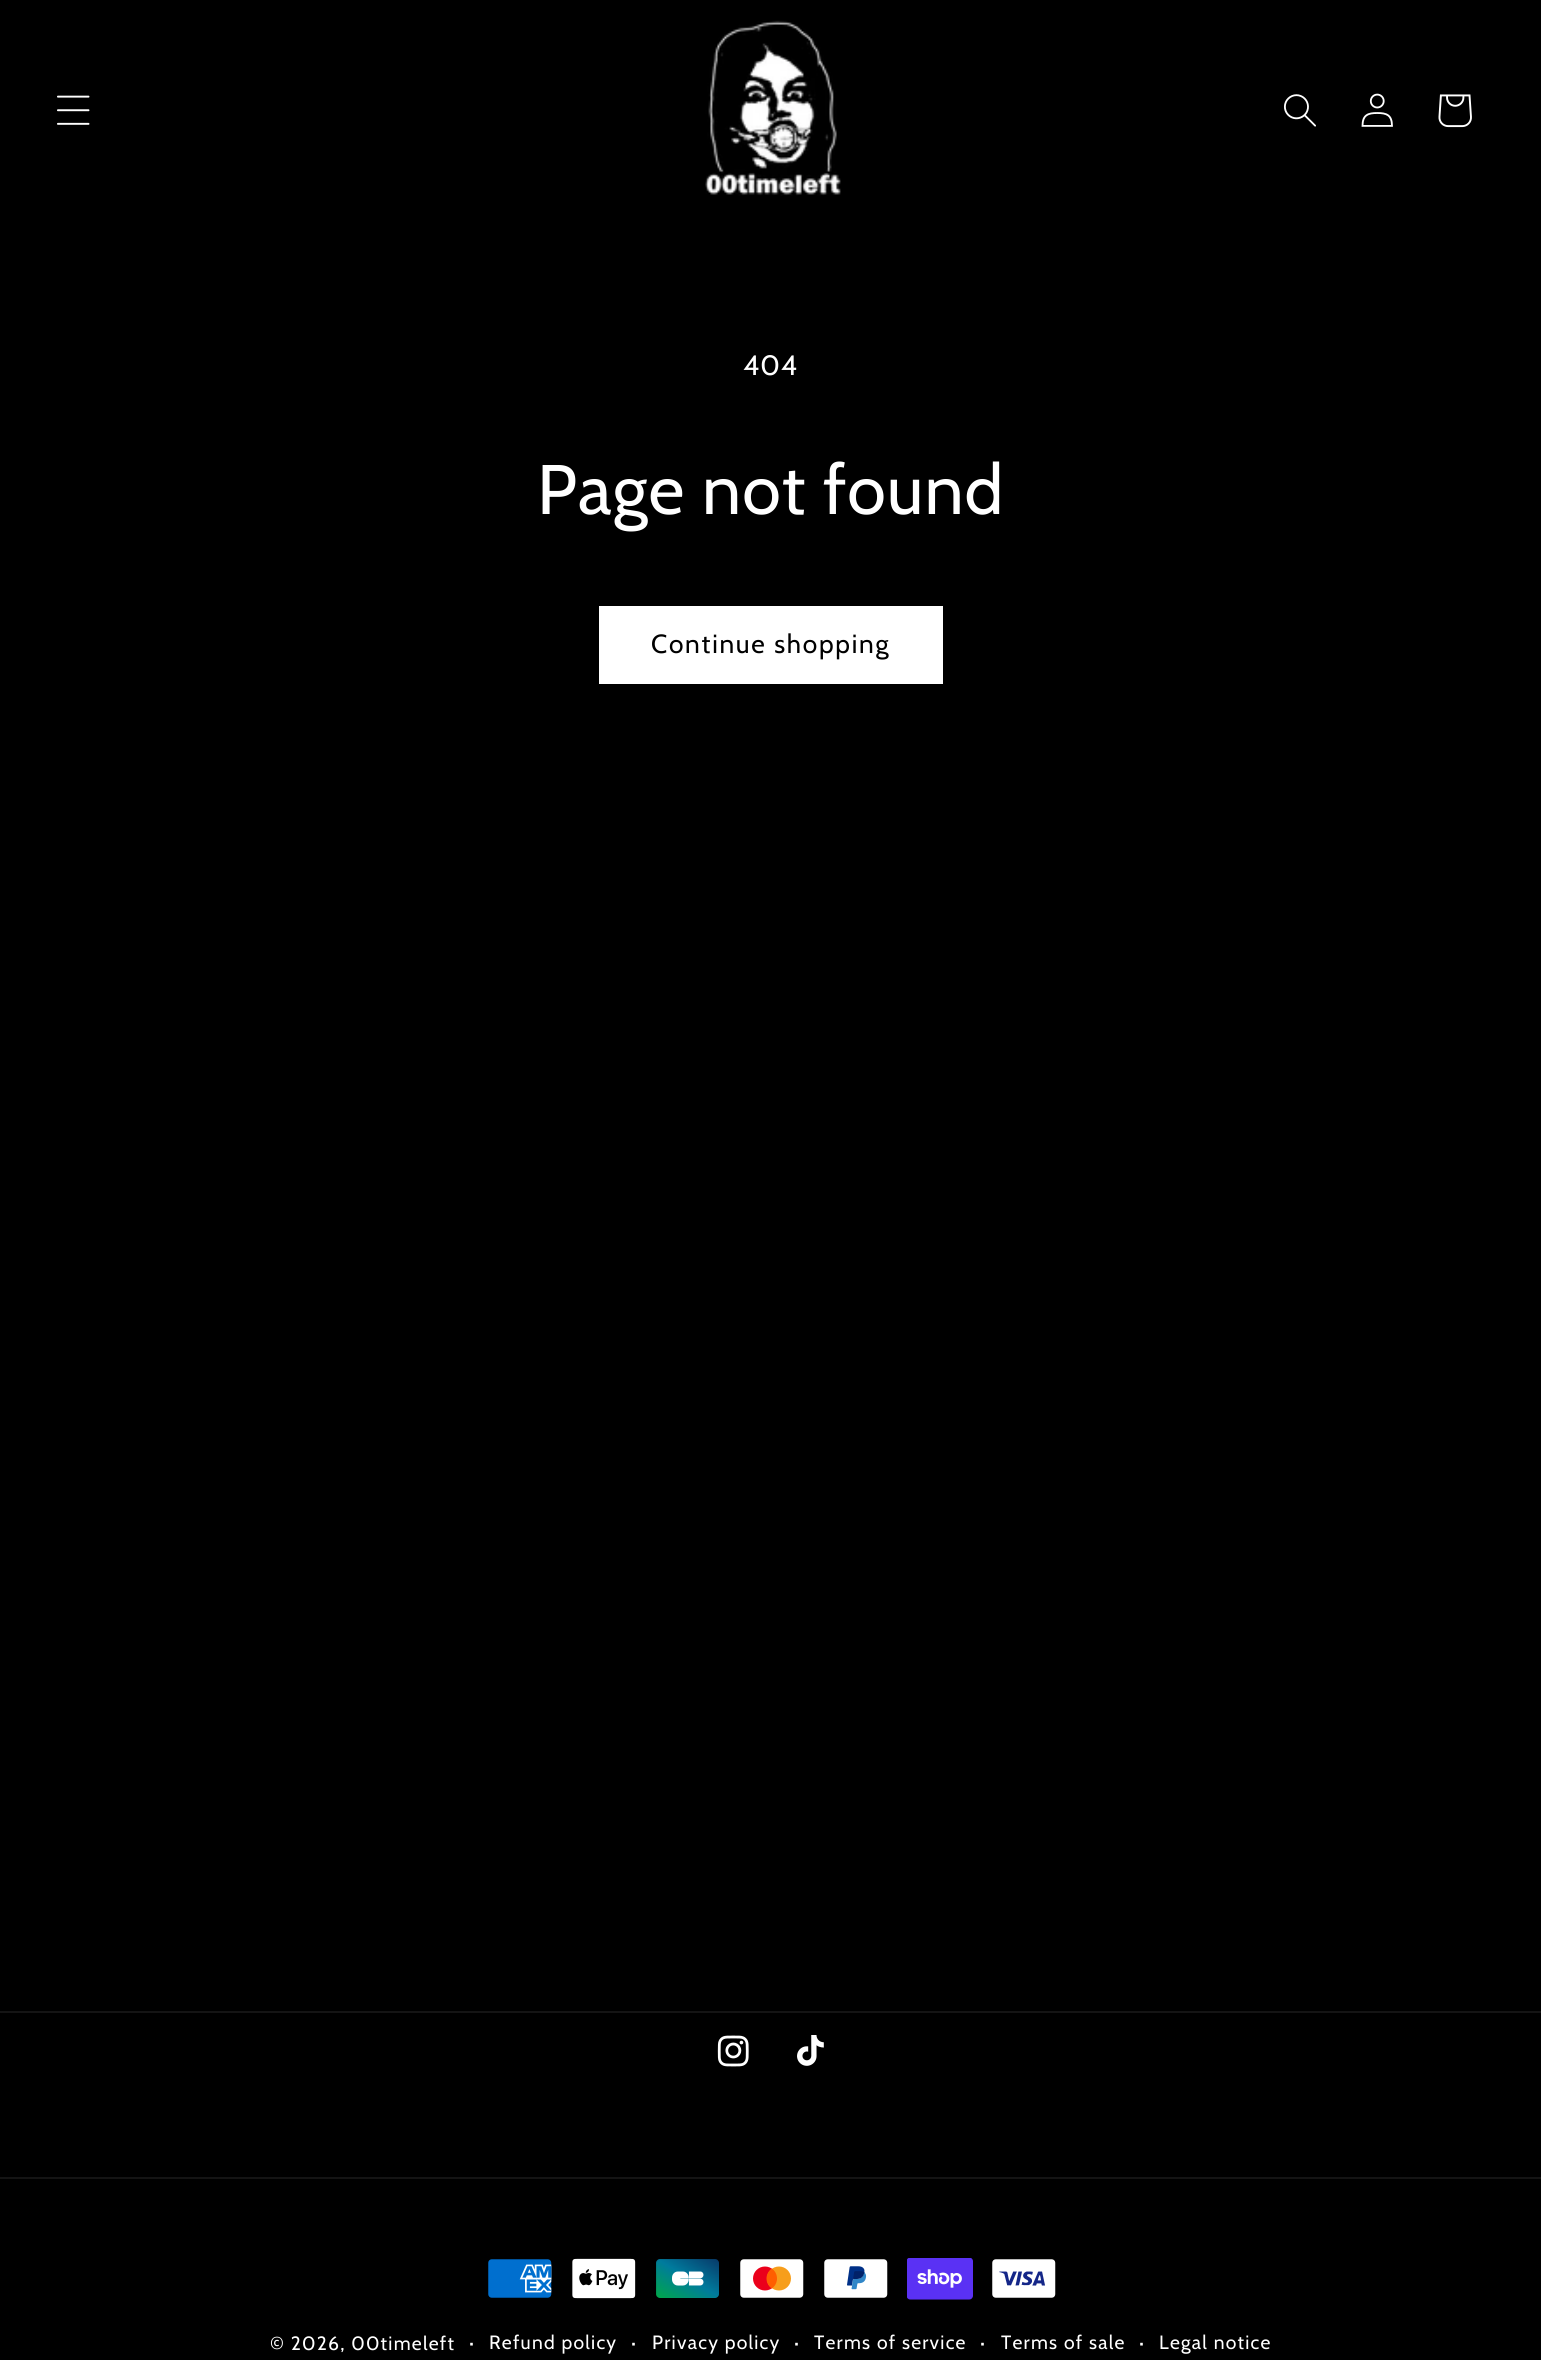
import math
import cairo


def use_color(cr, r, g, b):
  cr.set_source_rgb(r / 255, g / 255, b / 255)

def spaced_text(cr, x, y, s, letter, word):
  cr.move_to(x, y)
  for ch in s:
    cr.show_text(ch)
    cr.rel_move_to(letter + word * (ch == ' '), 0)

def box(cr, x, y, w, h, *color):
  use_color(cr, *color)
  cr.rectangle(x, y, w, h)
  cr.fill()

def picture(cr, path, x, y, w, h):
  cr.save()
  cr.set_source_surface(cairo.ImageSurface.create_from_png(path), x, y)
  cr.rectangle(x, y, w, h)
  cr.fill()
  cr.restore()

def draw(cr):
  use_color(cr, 0, 0, 0)
  cr.paint()
  picture(cr, "img_01.png", 57, 95, 33, 30)
  picture(cr, "img_02.png", 705, 20, 136, 176)
  picture(cr, "img_03.png", 1284, 94, 32, 33)
  picture(cr, "img_04.png", 1361, 93, 32, 34)
  picture(cr, "img_05.png", 1438, 94, 34, 34)
  box(cr, 599, 606, 344, 78, 255, 255, 255)
  box(cr, 0, 2011, 1541, 2, 20, 20, 20)
  picture(cr, "img_06.png", 717, 2035, 32, 32)
  picture(cr, "img_07.png", 797, 2035, 27, 31)
  box(cr, 0, 2177, 1541, 2, 20, 20, 20)
  picture(cr, "img_08.png", 488, 2259, 64, 39)
  picture(cr, "img_09.png", 572, 2258, 64, 41)
  picture(cr, "img_10.png", 656, 2259, 63, 39)
  picture(cr, "img_11.png", 740, 2259, 64, 39)
  picture(cr, "img_12.png", 824, 2259, 64, 39)
  picture(cr, "img_13.png", 907, 2258, 66, 42)
  picture(cr, "img_14.png", 992, 2259, 64, 39)
  cr.select_font_face("Cabin")
  cr.set_font_size(28)
  use_color(cr, 255, 255, 255)
  spaced_text(cr, 743, 375, "404", 1, 0)
  cr.set_font_size(70)
  spaced_text(cr, 537, 514, "Page not found", 1, 0)
  cr.set_font_size(26.25)
  use_color(cr, 0, 0, 0)
  spaced_text(cr, 651, 653, "Continue shopping", 1.75, 0)
  cr.set_font_size(19.25)
  use_color(cr, 255, 255, 255)
  spaced_text(cr, 270, 2350, "© 2026, 00timeleft", 1.25, 0)
  cr.set_font_size(21)
  spaced_text(cr, 469, 2350, "·", 1.25, 0)
  cr.set_font_size(19.25)
  spaced_text(cr, 489, 2349, "Refund policy", 1.25, 0)
  cr.set_font_size(21)
  spaced_text(cr, 631, 2350, "·", 1.25, 0)
  cr.set_font_size(19.25)
  spaced_text(cr, 652, 2349, "Privacy policy", 1.25, 0)
  cr.set_font_size(21)
  spaced_text(cr, 794, 2350, "·", 1.25, 0)
  cr.set_font_size(19.25)
  spaced_text(cr, 814, 2349, "Terms of service", 1.25, 0)
  cr.set_font_size(21)
  spaced_text(cr, 980, 2350, "·", 1.25, 0)
  cr.set_font_size(19.25)
  spaced_text(cr, 1001, 2349, "Terms of sale", 1.25, 0)
  cr.set_font_size(21)
  spaced_text(cr, 1139, 2350, "·", 1.25, 0)
  cr.set_font_size(19.25)
  spaced_text(cr, 1159, 2349, "Legal notice", 1.25, 0)


surface = cairo.ImageSurface(cairo.FORMAT_RGB24, 1541, 2360)
cr = cairo.Context(surface)
options = cairo.FontOptions()
options.set_hint_metrics(cairo.HINT_METRICS_OFF)
options.set_hint_style(cairo.HINT_STYLE_NONE)
cr.set_font_options(options)
cr.set_miter_limit(4)
draw(cr)
surface.write_to_png("out.png")
